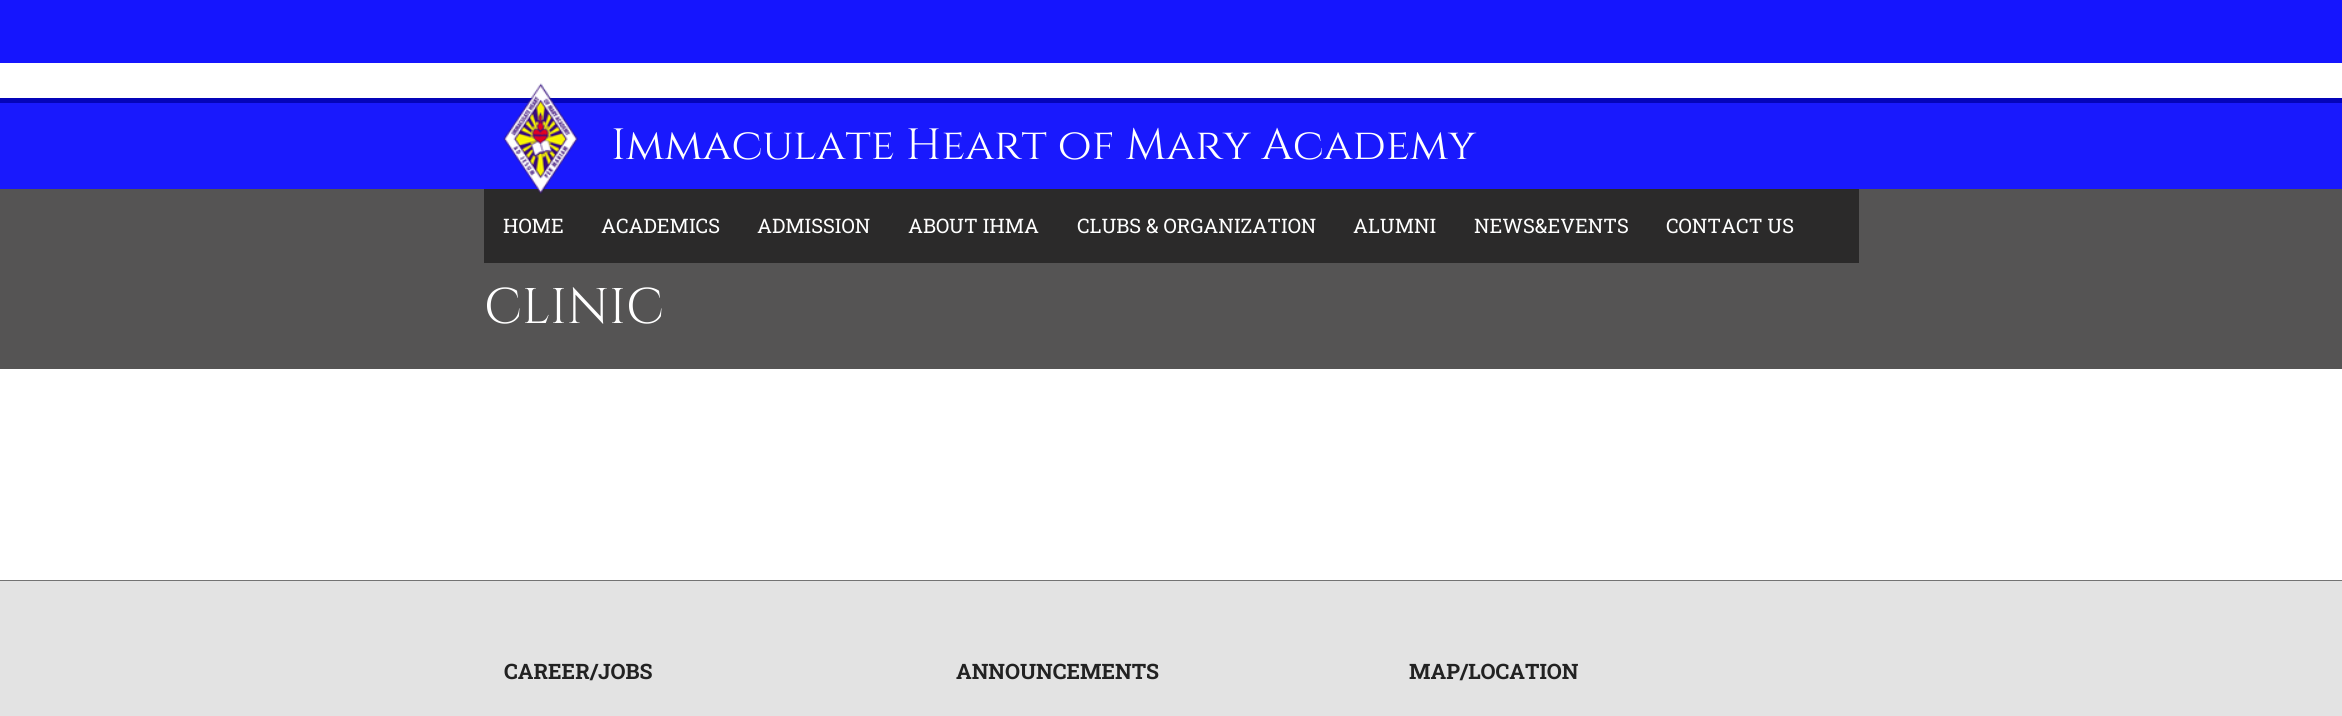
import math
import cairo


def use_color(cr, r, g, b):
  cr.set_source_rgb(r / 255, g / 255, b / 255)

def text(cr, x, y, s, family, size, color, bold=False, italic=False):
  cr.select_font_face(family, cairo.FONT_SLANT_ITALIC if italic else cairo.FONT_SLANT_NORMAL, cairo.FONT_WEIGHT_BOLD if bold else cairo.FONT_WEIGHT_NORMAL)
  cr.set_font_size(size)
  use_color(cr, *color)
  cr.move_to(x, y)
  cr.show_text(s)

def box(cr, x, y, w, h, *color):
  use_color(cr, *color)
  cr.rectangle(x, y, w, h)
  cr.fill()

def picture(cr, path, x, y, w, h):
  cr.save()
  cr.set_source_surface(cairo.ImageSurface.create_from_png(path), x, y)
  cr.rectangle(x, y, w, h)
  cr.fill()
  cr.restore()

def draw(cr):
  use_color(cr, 21, 21, 254)
  cr.paint()
  box(cr, 0, 63, 2342, 35, 255, 255, 255)
  box(cr, 0, 98, 2342, 5, 4, 4, 185)
  box(cr, 0, 103, 2342, 86, 25, 25, 253)
  box(cr, 0, 189, 2342, 180, 85, 84, 84)
  box(cr, 484, 189, 1375, 74, 43, 42, 42)
  picture(cr, "img_01.png", 503, 83, 75, 111)
  box(cr, 0, 369, 2342, 211, 255, 255, 255)
  box(cr, 0, 581, 2342, 135, 227, 227, 227)
  box(cr, 0, 580, 2342, 1, 115, 115, 115)
  text(cr, 611, 159, "Immaculate Heart of Mary Academy", "Cinzel", 43.75, (255, 255, 255))
  text(cr, 503, 233, "HOME", "Roboto Slab", 20, (255, 255, 255))
  text(cr, 601, 233, "ACADEMICS", "Roboto Slab", 20, (255, 255, 255))
  text(cr, 757, 233, "ADMISSION", "Roboto Slab", 20, (255, 255, 255))
  text(cr, 908, 233, "ABOUT IHMA", "Roboto Slab", 20, (255, 255, 255))
  text(cr, 1077, 233, "CLUBS & ORGANIZATION", "Roboto Slab", 20, (255, 255, 255))
  text(cr, 1353, 233, "ALUMNI", "Roboto Slab", 20, (255, 255, 255))
  text(cr, 1474, 233, "NEWS&EVENTS", "Roboto Slab", 20, (255, 255, 255))
  text(cr, 1666, 233, "CONTACT US", "Roboto Slab", 20, (255, 255, 255))
  text(cr, 484, 323, "CLINIC", "Cinzel", 50, (255, 255, 255))
  text(cr, 504, 679, "CAREER/JOBS", "Roboto Slab", 21.25, (34, 34, 34), bold=True)
  text(cr, 956, 679, "ANNOUNCEMENTS", "Roboto Slab", 21.25, (34, 34, 34), bold=True)
  text(cr, 1409, 679, "MAP/LOCATION", "Roboto Slab", 21.25, (34, 34, 34), bold=True)


surface = cairo.ImageSurface(cairo.FORMAT_RGB24, 2342, 716)
cr = cairo.Context(surface)
options = cairo.FontOptions()
options.set_hint_metrics(cairo.HINT_METRICS_OFF)
options.set_hint_style(cairo.HINT_STYLE_NONE)
cr.set_font_options(options)
cr.set_miter_limit(4)
draw(cr)
surface.write_to_png("out.png")
